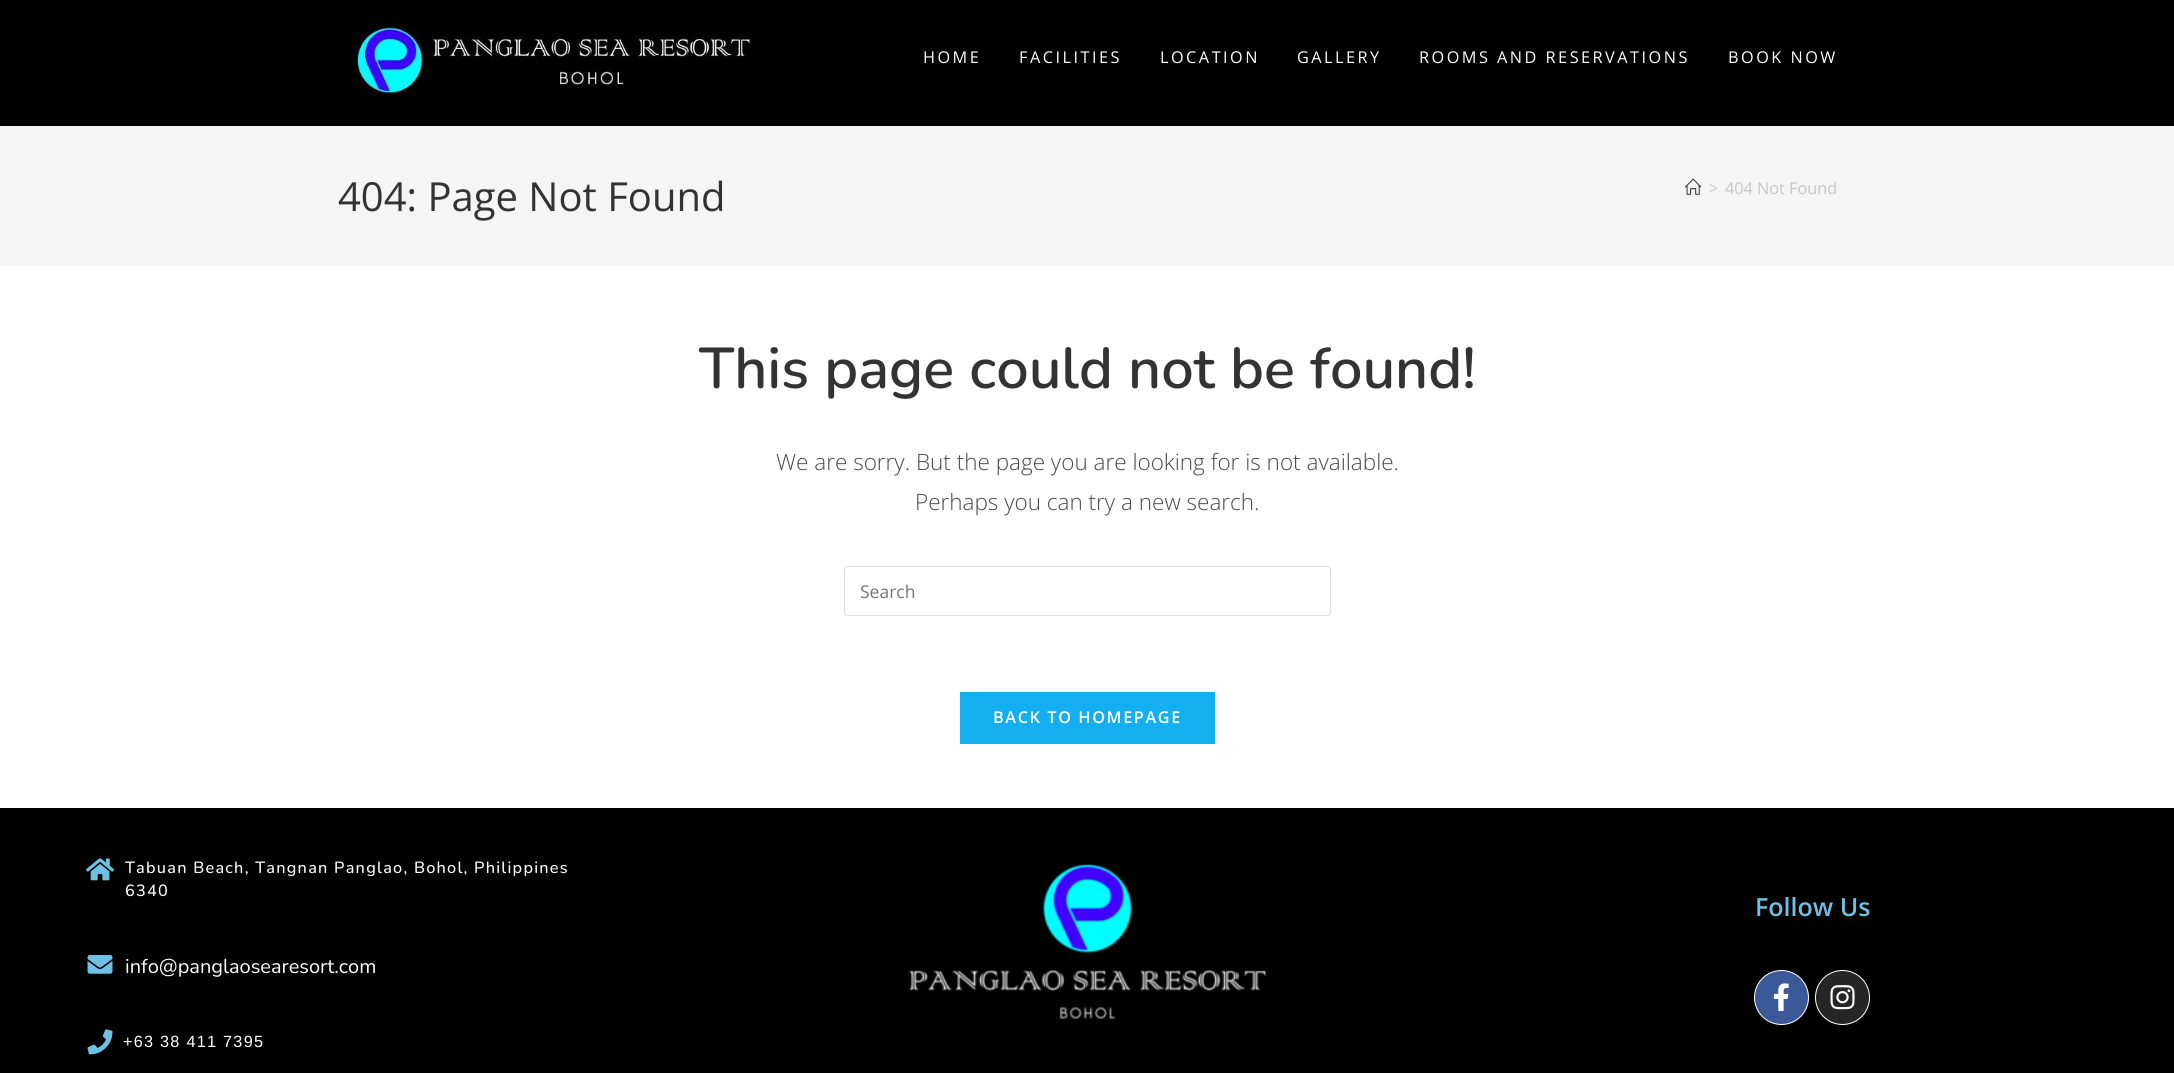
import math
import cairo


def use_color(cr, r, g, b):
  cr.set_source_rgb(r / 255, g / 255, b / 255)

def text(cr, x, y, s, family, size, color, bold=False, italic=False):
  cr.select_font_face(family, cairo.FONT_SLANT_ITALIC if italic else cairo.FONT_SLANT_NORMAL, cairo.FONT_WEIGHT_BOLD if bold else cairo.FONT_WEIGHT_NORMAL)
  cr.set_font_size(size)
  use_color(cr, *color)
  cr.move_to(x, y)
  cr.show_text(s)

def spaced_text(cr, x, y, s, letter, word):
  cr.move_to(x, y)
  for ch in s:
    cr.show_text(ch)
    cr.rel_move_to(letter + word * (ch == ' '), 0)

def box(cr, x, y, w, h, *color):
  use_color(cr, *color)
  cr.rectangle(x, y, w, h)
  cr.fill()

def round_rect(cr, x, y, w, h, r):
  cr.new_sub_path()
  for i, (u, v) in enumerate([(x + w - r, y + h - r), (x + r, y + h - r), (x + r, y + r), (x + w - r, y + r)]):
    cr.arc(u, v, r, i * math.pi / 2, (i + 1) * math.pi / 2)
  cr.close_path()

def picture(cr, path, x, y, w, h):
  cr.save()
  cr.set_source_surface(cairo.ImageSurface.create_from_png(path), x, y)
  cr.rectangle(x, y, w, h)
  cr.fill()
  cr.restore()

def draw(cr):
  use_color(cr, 255, 255, 255)
  cr.paint()
  box(cr, 0, 0, 2174, 126, 0, 0, 0)
  picture(cr, "img_01.png", 349, 23, 402, 71)
  box(cr, 0, 126, 2174, 140, 245, 245, 245)
  picture(cr, "img_02.png", 1685, 178, 17, 17)
  round_rect(cr, 844.5, 566.5, 486, 49, 3.5)
  use_color(cr, 221, 221, 221)
  cr.set_line_width(1)
  cr.stroke()
  box(cr, 960, 692, 255, 52, 19, 175, 240)
  box(cr, 0, 808, 2174, 265, 0, 0, 0)
  picture(cr, "img_03.png", 86, 858, 29, 23)
  picture(cr, "img_04.png", 87, 955, 26, 19)
  picture(cr, "img_05.png", 87, 1029, 26, 26)
  picture(cr, "img_06.png", 908, 863, 359, 156)
  use_color(cr, 59, 89, 152)
  cr.arc(1781.5, 997.5, 27, 0, 2 * math.pi)
  cr.fill_preserve()
  use_color(cr, 255, 255, 255)
  cr.stroke()
  picture(cr, "img_07.png", 1773, 983, 16, 28)
  use_color(cr, 38, 38, 38)
  cr.arc(1842.5, 997.5, 27, 0, 2 * math.pi)
  cr.fill_preserve()
  use_color(cr, 255, 255, 255)
  cr.stroke()
  picture(cr, "img_08.png", 1830, 985, 25, 25)
  cr.select_font_face("Open Sans")
  cr.set_font_size(16.25)
  spaced_text(cr, 923, 63, "HOME", 2.5, 0)
  spaced_text(cr, 1019, 63, "FACILITIES", 2.5, 0)
  spaced_text(cr, 1160, 63, "LOCATION", 2.5, 0)
  spaced_text(cr, 1297, 63, "GALLERY", 2.5, 0)
  spaced_text(cr, 1419, 63, "ROOMS AND RESERVATIONS", 2.5, 0)
  spaced_text(cr, 1728, 63, "BOOK NOW", 2.5, 0)
  text(cr, 338, 211, "404: Page Not Found", "Open Sans", 40, (51, 51, 51))
  text(cr, 1709, 194, ">", "Open Sans", 16.25, (198, 198, 198))
  text(cr, 1725, 194, "404 Not Found", "Open Sans", 16.25, (198, 198, 198))
  text(cr, 699, 388, "This page could not be found!", "Nunito SemiBold", 57.5, (51, 51, 51))
  text(cr, 776, 470, "We are sorry. But the page you are looking for is not available.", "Open Sans Light", 22.5, (74, 74, 74))
  text(cr, 915, 510, "Perhaps you can try a new search.", "Open Sans Light", 22.5, (74, 74, 74))
  text(cr, 860, 598, "Search", "Open Sans", 17.5, (117, 117, 117))
  cr.select_font_face("Open Sans SemiBold")
  cr.set_font_size(16.25)
  use_color(cr, 255, 255, 255)
  spaced_text(cr, 993, 723, "BACK TO HOMEPAGE", 1.6, 0)
  cr.select_font_face("Nunito Medium")
  spaced_text(cr, 125, 873, "Tabuan Beach, Tangnan Panglao, Bohol, Philippines", 1.25, 0)
  spaced_text(cr, 125, 896, "6340", 1.25, 0)
  text(cr, 125, 973, "info@panglaosearesort.com", "Nunito", 20, (255, 255, 255))
  cr.select_font_face("Liberation Sans")
  cr.set_font_size(16.25)
  spaced_text(cr, 123, 1047, "+63 38 411 7395", 1.25, 0)
  text(cr, 1755, 916, "Follow Us", "Open Sans SemiBold", 25, (110, 193, 228))


surface = cairo.ImageSurface(cairo.FORMAT_RGB24, 2174, 1073)
cr = cairo.Context(surface)
options = cairo.FontOptions()
options.set_hint_metrics(cairo.HINT_METRICS_OFF)
options.set_hint_style(cairo.HINT_STYLE_NONE)
cr.set_font_options(options)
cr.set_miter_limit(4)
draw(cr)
surface.write_to_png("out.png")
